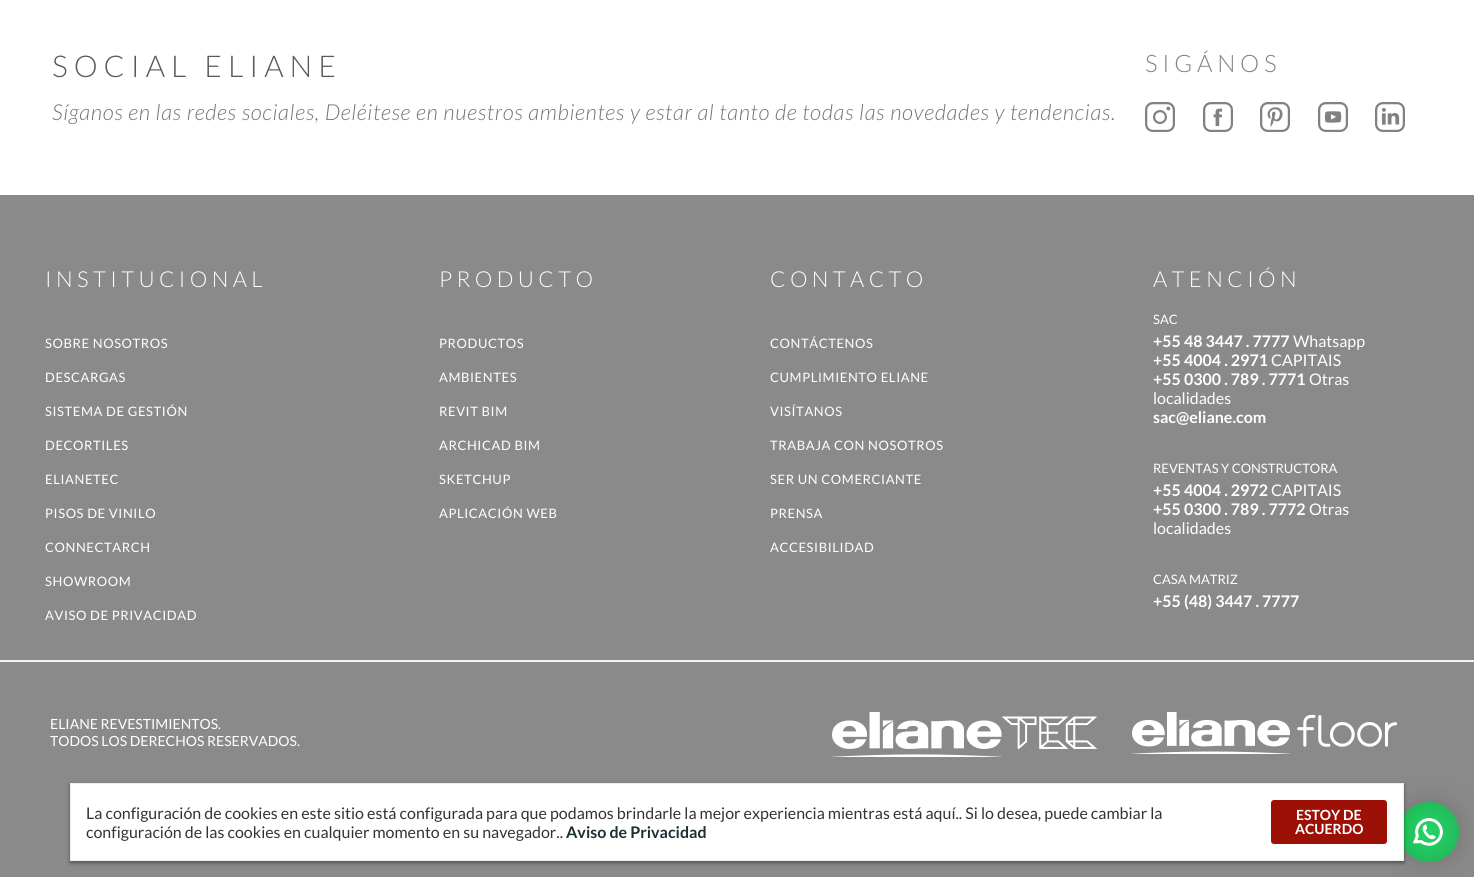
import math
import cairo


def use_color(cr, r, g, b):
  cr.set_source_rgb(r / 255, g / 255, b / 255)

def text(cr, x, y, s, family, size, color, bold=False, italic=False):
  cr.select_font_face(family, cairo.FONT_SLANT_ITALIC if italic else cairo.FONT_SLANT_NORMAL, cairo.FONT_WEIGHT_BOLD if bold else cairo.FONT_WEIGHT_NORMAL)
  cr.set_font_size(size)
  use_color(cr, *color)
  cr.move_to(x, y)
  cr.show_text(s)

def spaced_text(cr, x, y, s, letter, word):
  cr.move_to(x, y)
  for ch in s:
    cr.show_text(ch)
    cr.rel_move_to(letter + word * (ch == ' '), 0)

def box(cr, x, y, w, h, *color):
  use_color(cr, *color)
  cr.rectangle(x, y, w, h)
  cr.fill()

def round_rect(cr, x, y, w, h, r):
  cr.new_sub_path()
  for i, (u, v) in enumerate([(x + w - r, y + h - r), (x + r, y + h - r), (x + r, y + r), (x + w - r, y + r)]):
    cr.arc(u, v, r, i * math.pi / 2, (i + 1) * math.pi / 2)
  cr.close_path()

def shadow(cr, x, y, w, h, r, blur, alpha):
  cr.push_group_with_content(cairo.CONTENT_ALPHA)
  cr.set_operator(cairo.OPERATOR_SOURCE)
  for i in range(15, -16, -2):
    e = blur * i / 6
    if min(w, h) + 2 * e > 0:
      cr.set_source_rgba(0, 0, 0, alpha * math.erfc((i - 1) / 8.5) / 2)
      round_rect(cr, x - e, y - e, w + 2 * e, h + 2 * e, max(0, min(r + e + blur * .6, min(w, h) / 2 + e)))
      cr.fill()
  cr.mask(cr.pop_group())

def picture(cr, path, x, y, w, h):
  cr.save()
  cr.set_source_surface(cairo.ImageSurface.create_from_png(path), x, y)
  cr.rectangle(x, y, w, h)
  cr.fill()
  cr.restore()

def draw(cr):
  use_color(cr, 255, 255, 255)
  cr.paint()
  picture(cr, "img_01.png", 1145, 102, 30, 30)
  picture(cr, "img_02.png", 1203, 102, 30, 30)
  picture(cr, "img_03.png", 1260, 102, 30, 30)
  picture(cr, "img_04.png", 1318, 102, 30, 30)
  picture(cr, "img_05.png", 1375, 102, 30, 30)
  box(cr, 0, 195, 1474, 465, 138, 138, 138)
  box(cr, 0, 660, 1474, 2, 244, 244, 244)
  box(cr, 0, 662, 1474, 215, 138, 138, 138)
  picture(cr, "img_06.png", 832, 712, 265, 45)
  picture(cr, "img_07.png", 1132, 712, 265, 42)
  use_color(cr, 0, 0, 0)
  shadow(cr, 1402, 805, 54, 54, 27, 14.5, 0.2)
  gradient = cairo.RadialGradient(1429, 832, 0, 1429, 832, 42)
  gradient.add_color_stop_rgba(0, 0.145, 0.827, 0.4, 1)
  gradient.add_color_stop_rgba(1, 0.118, 0.706, 0.337, 1)
  cr.set_source(gradient)
  cr.arc(1429, 832, 30, 0, 2 * math.pi)
  cr.fill()
  use_color(cr, 0, 0, 0)
  shadow(cr, 70, 785, 1334, 78, 0, 2, 0.4)
  use_color(cr, 255, 255, 255)
  cr.rectangle(70.5, 783.5, 1333, 77)
  cr.fill_preserve()
  use_color(cr, 238, 238, 238)
  cr.set_line_width(1)
  cr.stroke()
  use_color(cr, 156, 16, 6)
  round_rect(cr, 1271, 800, 116, 44, 3)
  cr.fill()
  picture(cr, "img_08.png", 1413, 818, 30, 28)
  cr.select_font_face("Lato Light")
  cr.set_font_size(30)
  use_color(cr, 88, 89, 91)
  spaced_text(cr, 52, 77, "SOCIAL ELIANE", 6, 0)
  cr.select_font_face("Lato Light", cairo.FONT_SLANT_ITALIC)
  cr.set_font_size(22)
  use_color(cr, 114, 115, 117)
  spaced_text(cr, 52, 120, "Síganos en las redes sociales, Deléitese en nuestros ambientes y estar al tanto de todas las novedades y tendencias.", 0.66, 0)
  cr.select_font_face("Lato Light")
  cr.set_font_size(24)
  use_color(cr, 128, 129, 131)
  spaced_text(cr, 1145, 72, "SIGÁNOS", 4.75, 0)
  cr.set_font_size(22)
  use_color(cr, 255, 255, 255)
  spaced_text(cr, 45, 287, "INSTITUCIONAL", 4.4, 0)
  cr.select_font_face("Lato")
  cr.set_font_size(13)
  spaced_text(cr, 45, 348, "SOBRE NOSOTROS", 0.6, 0)
  spaced_text(cr, 45, 382, "DESCARGAS", 0.6, 0)
  spaced_text(cr, 45, 416, "SISTEMA DE GESTIÓN", 0.6, 0)
  spaced_text(cr, 45, 450, "DECORTILES", 0.6, 0)
  spaced_text(cr, 45, 484, "ELIANETEC", 0.6, 0)
  spaced_text(cr, 45, 518, "PISOS DE VINILO", 0.6, 0)
  spaced_text(cr, 45, 552, "CONNECTARCH", 0.6, 0)
  spaced_text(cr, 45, 586, "SHOWROOM", 0.6, 0)
  spaced_text(cr, 45, 620, "AVISO DE PRIVACIDAD", 0.6, 0)
  cr.select_font_face("Lato Light")
  cr.set_font_size(22)
  spaced_text(cr, 439, 287, "PRODUCTO", 4.4, 0)
  cr.select_font_face("Lato")
  cr.set_font_size(13)
  spaced_text(cr, 439, 348, "PRODUCTOS", 0.6, 0)
  spaced_text(cr, 439, 382, "AMBIENTES", 0.6, 0)
  spaced_text(cr, 439, 416, "REVIT BIM", 0.6, 0)
  spaced_text(cr, 439, 450, "ARCHICAD BIM", 0.6, 0)
  spaced_text(cr, 439, 484, "SKETCHUP", 0.6, 0)
  spaced_text(cr, 439, 518, "APLICACIÓN WEB", 0.6, 0)
  cr.select_font_face("Lato Light")
  cr.set_font_size(22)
  spaced_text(cr, 770, 287, "CONTACTO", 4.4, 0)
  cr.select_font_face("Lato")
  cr.set_font_size(13)
  spaced_text(cr, 770, 348, "CONTÁCTENOS", 0.6, 0)
  spaced_text(cr, 770, 382, "CUMPLIMIENTO ELIANE", 0.6, 0)
  spaced_text(cr, 770, 416, "VISÍTANOS", 0.6, 0)
  spaced_text(cr, 770, 450, "TRABAJA CON NOSOTROS", 0.6, 0)
  spaced_text(cr, 770, 484, "SER UN COMERCIANTE", 0.6, 0)
  spaced_text(cr, 770, 518, "PRENSA", 0.6, 0)
  spaced_text(cr, 770, 552, "ACCESIBILIDAD", 0.6, 0)
  cr.select_font_face("Lato Light")
  cr.set_font_size(22)
  spaced_text(cr, 1153, 287, "ATENCIÓN", 4.4, 0)
  text(cr, 1153, 324, "SAC", "Lato", 13, (255, 255, 255))
  text(cr, 1153, 347, "+55 48 3447 . 7777", "Lato", 16, (255, 255, 255), bold=True)
  text(cr, 1293, 347, "Whatsapp", "Lato", 16, (255, 255, 255))
  text(cr, 1153, 366, "+55 4004 . 2971", "Lato", 16, (255, 255, 255), bold=True)
  text(cr, 1271, 366, "CAPITAIS", "Lato", 16, (255, 255, 255))
  text(cr, 1153, 385, "+55 0300 . 789 . 7771", "Lato", 16, (255, 255, 255), bold=True)
  text(cr, 1309, 385, "Otras", "Lato", 16, (255, 255, 255))
  text(cr, 1153, 404, "localidades", "Lato", 16, (255, 255, 255))
  text(cr, 1153, 423, "sac@eliane.com", "Lato", 16, (255, 255, 255), bold=True)
  text(cr, 1153, 473, "REVENTAS Y CONSTRUCTORA", "Lato", 13, (255, 255, 255))
  text(cr, 1153, 496, "+55 4004 . 2972", "Lato", 16, (255, 255, 255), bold=True)
  text(cr, 1271, 496, "CAPITAIS", "Lato", 16, (255, 255, 255))
  text(cr, 1153, 515, "+55 0300 . 789 . 7772", "Lato", 16, (255, 255, 255), bold=True)
  text(cr, 1309, 515, "Otras", "Lato", 16, (255, 255, 255))
  text(cr, 1153, 534, "localidades", "Lato", 16, (255, 255, 255))
  text(cr, 1153, 584, "CASA MATRIZ", "Lato", 13, (255, 255, 255))
  text(cr, 1153, 607, "+55 (48) 3447 . 7777", "Lato", 16, (255, 255, 255), bold=True)
  text(cr, 50, 729, "ELIANE REVESTIMIENTOS.", "Lato", 14, (255, 255, 255))
  text(cr, 50, 746, "TODOS LOS DERECHOS RESERVADOS.", "Lato", 14, (255, 255, 255))
  text(cr, 86, 819, "La configuración de cookies en este sitio está configurada para que podamos brindarle la mejor experiencia mientras está aquí.. Si lo desea, puede cambiar la", "Lato", 16, (51, 51, 51))
  text(cr, 86, 838, "configuración de las cookies en cualquier momento en su navegador..", "Lato", 16, (51, 51, 51))
  text(cr, 566, 838, "Aviso de Privacidad", "Lato", 16, (28, 47, 51), bold=True)
  text(cr, 1296, 820, "ESTOY DE", "Lato", 14, (255, 255, 255), bold=True)
  text(cr, 1295, 834, "ACUERDO", "Lato", 14, (255, 255, 255), bold=True)


surface = cairo.ImageSurface(cairo.FORMAT_RGB24, 1474, 877)
cr = cairo.Context(surface)
options = cairo.FontOptions()
options.set_hint_metrics(cairo.HINT_METRICS_OFF)
options.set_hint_style(cairo.HINT_STYLE_NONE)
cr.set_font_options(options)
cr.set_miter_limit(4)
draw(cr)
surface.write_to_png("out.png")
